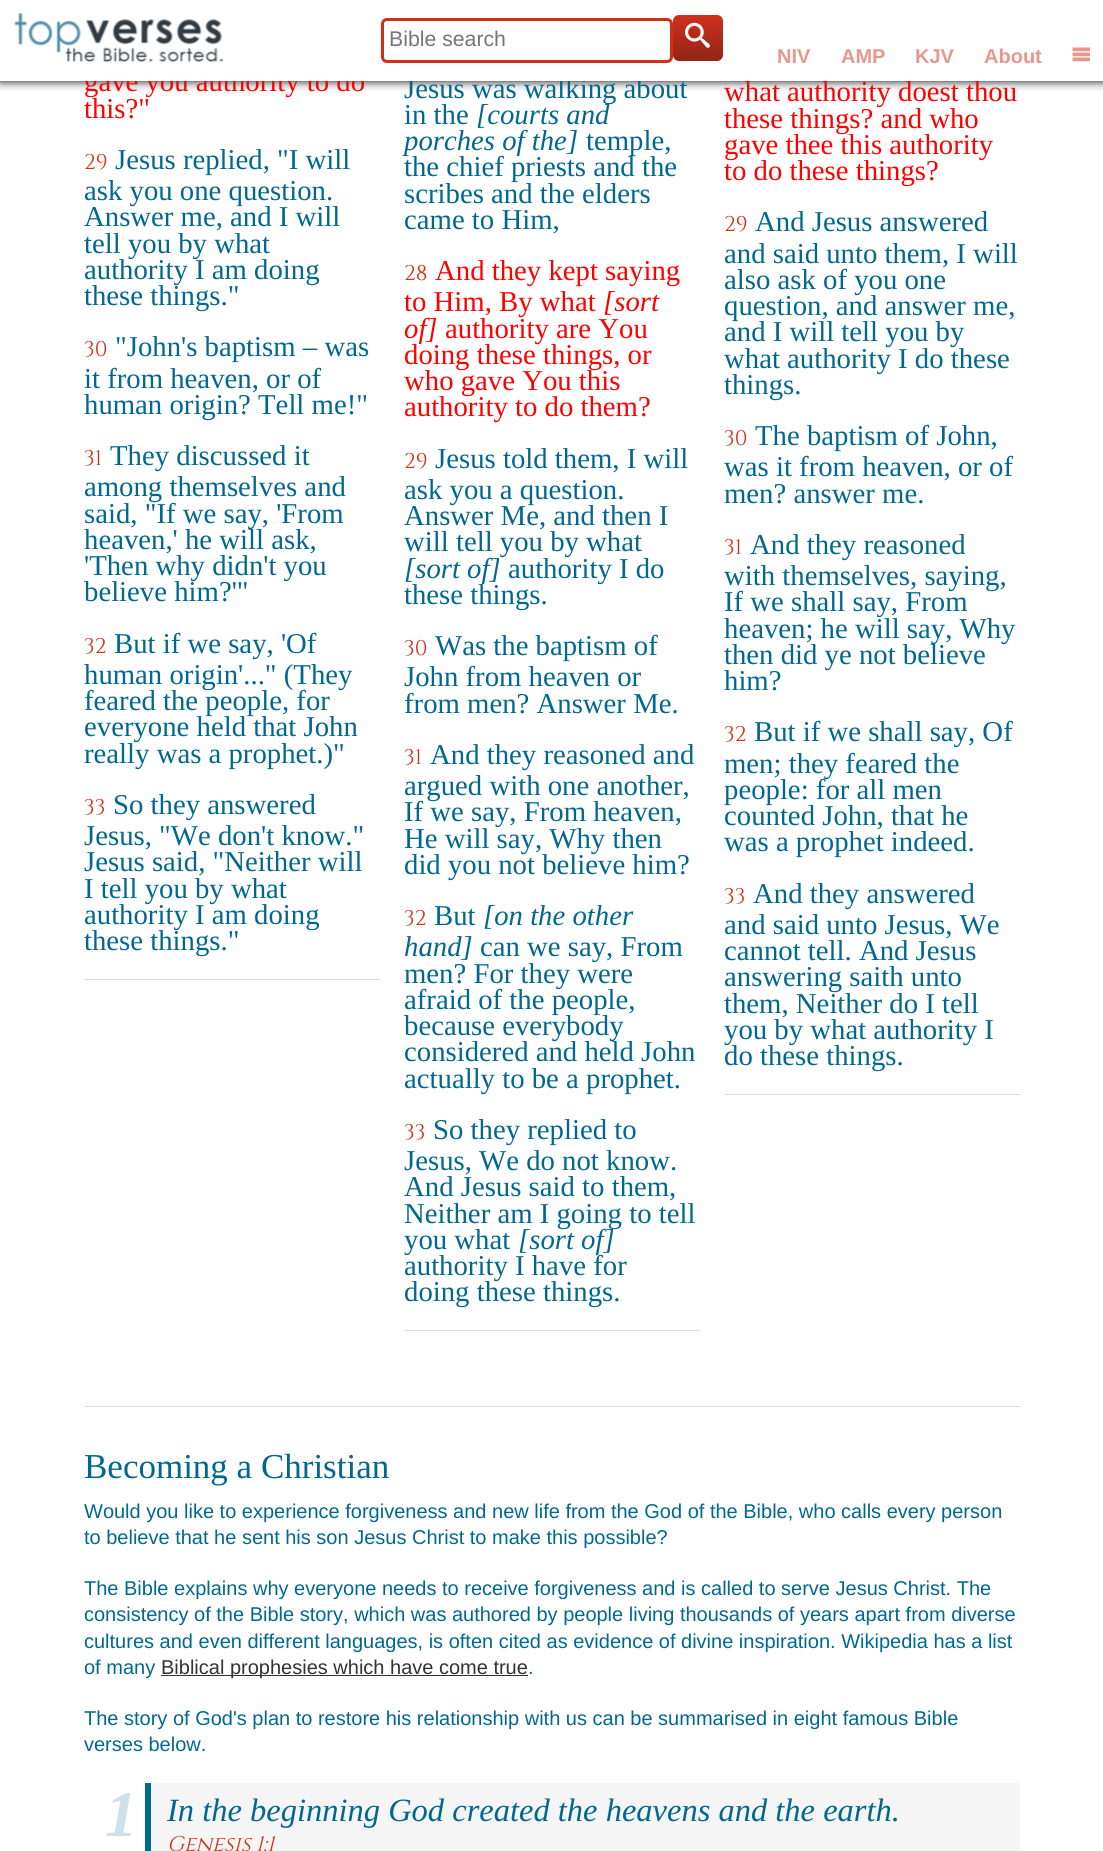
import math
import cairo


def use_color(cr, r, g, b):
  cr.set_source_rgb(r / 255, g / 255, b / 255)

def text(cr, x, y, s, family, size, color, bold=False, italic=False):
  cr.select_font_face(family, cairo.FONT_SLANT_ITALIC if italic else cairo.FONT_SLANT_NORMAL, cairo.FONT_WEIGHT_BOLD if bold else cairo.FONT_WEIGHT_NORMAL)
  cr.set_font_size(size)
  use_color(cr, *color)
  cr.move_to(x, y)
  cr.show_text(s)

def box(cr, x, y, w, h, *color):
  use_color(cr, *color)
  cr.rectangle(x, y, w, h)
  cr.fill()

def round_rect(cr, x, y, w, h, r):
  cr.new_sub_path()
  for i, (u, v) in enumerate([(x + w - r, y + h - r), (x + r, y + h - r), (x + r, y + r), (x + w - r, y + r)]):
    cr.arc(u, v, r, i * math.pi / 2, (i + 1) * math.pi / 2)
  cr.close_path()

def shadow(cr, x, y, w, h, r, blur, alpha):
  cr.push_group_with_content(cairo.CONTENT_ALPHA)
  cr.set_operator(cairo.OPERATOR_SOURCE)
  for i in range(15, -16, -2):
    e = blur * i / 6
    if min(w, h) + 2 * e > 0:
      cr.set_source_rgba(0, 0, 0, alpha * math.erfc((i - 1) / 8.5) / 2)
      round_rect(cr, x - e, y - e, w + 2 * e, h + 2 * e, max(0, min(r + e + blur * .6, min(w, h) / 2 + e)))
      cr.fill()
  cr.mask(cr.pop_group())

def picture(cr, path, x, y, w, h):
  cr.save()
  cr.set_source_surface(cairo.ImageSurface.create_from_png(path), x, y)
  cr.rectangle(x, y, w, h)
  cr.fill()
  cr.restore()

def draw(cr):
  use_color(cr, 255, 255, 255)
  cr.paint()
  use_color(cr, 0, 0, 0)
  shadow(cr, 0, 0, 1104, 81, 0, 5, 1)
  box(cr, 85, 979, 295, 1, 221, 221, 221)
  box(cr, 405, 1330, 295, 1, 221, 221, 221)
  box(cr, 725, 1094, 295, 1, 221, 221, 221)
  box(cr, 85, 1406, 935, 1, 221, 221, 221)
  box(cr, 161, 1675, 367, 1, 51, 51, 51)
  box(cr, 151, 1783, 869, 68, 245, 245, 245)
  box(cr, 145, 1783, 6, 68, 0, 104, 144)
  text(cr, 84, 91, "gave you authority to do", "Liberation Serif", 28.75, (255, 0, 0))
  text(cr, 84, 118, "this?\"", "Liberation Serif", 28.75, (255, 0, 0))
  text(cr, 84, 169, "29", "Cinzel", 21.25, (209, 47, 25))
  text(cr, 115, 169, "Jesus replied, \"I will", "Liberation Serif", 28.75, (0, 104, 144))
  text(cr, 84, 200, "ask you one question.", "Liberation Serif", 28.75, (0, 104, 144))
  text(cr, 84, 226, "Answer me, and I will", "Liberation Serif", 28.75, (0, 104, 144))
  text(cr, 84, 253, "tell you by what", "Liberation Serif", 28.75, (0, 104, 144))
  text(cr, 84, 279, "authority I am doing", "Liberation Serif", 28.75, (0, 104, 144))
  text(cr, 84, 305, "these things.\"", "Liberation Serif", 28.75, (0, 104, 144))
  text(cr, 84, 356, "30", "Cinzel", 21.25, (209, 47, 25))
  text(cr, 115, 356, "\"John's baptism – was", "Liberation Serif", 28.75, (0, 104, 144))
  text(cr, 84, 388, "it from heaven, or of", "Liberation Serif", 28.75, (0, 104, 144))
  text(cr, 84, 414, "human origin? Tell me!\"", "Liberation Serif", 28.75, (0, 104, 144))
  text(cr, 84, 465, "31", "Cinzel", 21.25, (209, 47, 25))
  text(cr, 110, 465, "They discussed it", "Liberation Serif", 28.75, (0, 104, 144))
  text(cr, 84, 496, "among themselves and", "Liberation Serif", 28.75, (0, 104, 144))
  text(cr, 84, 523, "said, \"If we say, 'From", "Liberation Serif", 28.75, (0, 104, 144))
  text(cr, 84, 549, "heaven,' he will ask,", "Liberation Serif", 28.75, (0, 104, 144))
  text(cr, 84, 575, "'Then why didn't you", "Liberation Serif", 28.75, (0, 104, 144))
  text(cr, 84, 601, "believe him?'\"", "Liberation Serif", 28.75, (0, 104, 144))
  text(cr, 84, 653, "32", "Cinzel", 21.25, (209, 47, 25))
  text(cr, 114, 653, "But if we say, 'Of", "Liberation Serif", 28.75, (0, 104, 144))
  text(cr, 84, 684, "human origin'...\" (They", "Liberation Serif", 28.75, (0, 104, 144))
  text(cr, 84, 710, "feared the people, for", "Liberation Serif", 28.75, (0, 104, 144))
  text(cr, 84, 736, "everyone held that John", "Liberation Serif", 28.75, (0, 104, 144))
  text(cr, 84, 763, "really was a prophet.)\"", "Liberation Serif", 28.75, (0, 104, 144))
  text(cr, 84, 814, "33", "Cinzel", 21.25, (209, 47, 25))
  text(cr, 113, 814, "So they answered", "Liberation Serif", 28.75, (0, 104, 144))
  text(cr, 84, 845, "Jesus, \"We don't know.\"", "Liberation Serif", 28.75, (0, 104, 144))
  text(cr, 84, 871, "Jesus said, \"Neither will", "Liberation Serif", 28.75, (0, 104, 144))
  text(cr, 84, 898, "I tell you by what", "Liberation Serif", 28.75, (0, 104, 144))
  text(cr, 84, 924, "authority I am doing", "Liberation Serif", 28.75, (0, 104, 144))
  text(cr, 84, 950, "these things.\"", "Liberation Serif", 28.75, (0, 104, 144))
  text(cr, 404, 98, "Jesus was walking about", "Liberation Serif", 28.75, (0, 104, 144))
  box(cr, 0, 0, 1103, 81, 255, 255, 255)
  picture(cr, "img_03.png", 1072, 47, 18, 15)
  text(cr, 984, 63, "About", "Liberation Sans", 20, (232, 151, 140), bold=True)
  text(cr, 915, 63, "KJV", "Liberation Sans", 20, (232, 151, 140), bold=True)
  text(cr, 841, 63, "AMP", "Liberation Sans", 20, (232, 151, 140), bold=True)
  text(cr, 777, 63, "NIV", "Liberation Sans", 20, (232, 151, 140), bold=True)
  picture(cr, "img_01.png", 14, 13, 210, 50)
  gradient = cairo.LinearGradient(698, 15, 698, 61)
  gradient.add_color_stop_rgba(0, 0.82, 0.184, 0.098, 1)
  gradient.add_color_stop_rgba(1, 0.569, 0.149, 0.098, 1)
  cr.set_source(gradient)
  round_rect(cr, 673, 15, 50, 46, 6)
  cr.fill()
  picture(cr, "img_02.png", 685, 22, 25, 26)
  round_rect(cr, 382.5, 19.5, 289, 42, 4.5)
  use_color(cr, 209, 47, 25)
  cr.set_line_width(3)
  cr.stroke()
  text(cr, 389, 46, "Bible search", "Liberation Sans", 21.25, (117, 117, 117))
  text(cr, 404, 124, "in the", "Liberation Serif", 28.75, (0, 104, 144))
  text(cr, 476, 124, "[courts and", "Liberation Serif", 28.75, (0, 104, 144), italic=True)
  text(cr, 404, 150, "porches of the]", "Liberation Serif", 28.75, (0, 104, 144), italic=True)
  text(cr, 586, 150, "temple,", "Liberation Serif", 28.75, (0, 104, 144))
  text(cr, 404, 176, "the chief priests and the", "Liberation Serif", 28.75, (0, 104, 144))
  text(cr, 404, 203, "scribes and the elders", "Liberation Serif", 28.75, (0, 104, 144))
  text(cr, 404, 229, "came to Him,", "Liberation Serif", 28.75, (0, 104, 144))
  text(cr, 404, 280, "28", "Cinzel", 21.25, (209, 47, 25))
  text(cr, 435, 280, "And they kept saying", "Liberation Serif", 28.75, (255, 0, 0))
  text(cr, 404, 311, "to Him, By what", "Liberation Serif", 28.75, (255, 0, 0))
  text(cr, 603, 311, "[sort", "Liberation Serif", 28.75, (255, 0, 0), italic=True)
  text(cr, 404, 338, "of]", "Liberation Serif", 28.75, (255, 0, 0), italic=True)
  text(cr, 445, 338, "authority are You", "Liberation Serif", 28.75, (255, 0, 0))
  text(cr, 404, 364, "doing these things, or", "Liberation Serif", 28.75, (255, 0, 0))
  text(cr, 404, 390, "who gave You this", "Liberation Serif", 28.75, (255, 0, 0))
  text(cr, 404, 416, "authority to do them?", "Liberation Serif", 28.75, (255, 0, 0))
  text(cr, 404, 468, "29", "Cinzel", 21.25, (209, 47, 25))
  text(cr, 435, 468, "Jesus told them, I will", "Liberation Serif", 28.75, (0, 104, 144))
  text(cr, 404, 499, "ask you a question.", "Liberation Serif", 28.75, (0, 104, 144))
  text(cr, 404, 525, "Answer Me, and then I", "Liberation Serif", 28.75, (0, 104, 144))
  text(cr, 404, 551, "will tell you by what", "Liberation Serif", 28.75, (0, 104, 144))
  text(cr, 404, 578, "[sort of]", "Liberation Serif", 28.75, (0, 104, 144), italic=True)
  text(cr, 508, 578, "authority I do", "Liberation Serif", 28.75, (0, 104, 144))
  text(cr, 404, 604, "these things.", "Liberation Serif", 28.75, (0, 104, 144))
  text(cr, 404, 655, "30", "Cinzel", 21.25, (209, 47, 25))
  text(cr, 435, 655, "Was the baptism of", "Liberation Serif", 28.75, (0, 104, 144))
  text(cr, 404, 686, "John from heaven or", "Liberation Serif", 28.75, (0, 104, 144))
  text(cr, 404, 713, "from men? Answer Me.", "Liberation Serif", 28.75, (0, 104, 144))
  text(cr, 404, 764, "31", "Cinzel", 21.25, (209, 47, 25))
  text(cr, 430, 764, "And they reasoned and", "Liberation Serif", 28.75, (0, 104, 144))
  text(cr, 404, 795, "argued with one another,", "Liberation Serif", 28.75, (0, 104, 144))
  text(cr, 404, 821, "If we say, From heaven,", "Liberation Serif", 28.75, (0, 104, 144))
  text(cr, 404, 848, "He will say, Why then", "Liberation Serif", 28.75, (0, 104, 144))
  text(cr, 404, 874, "did you not believe him?", "Liberation Serif", 28.75, (0, 104, 144))
  text(cr, 404, 925, "32", "Cinzel", 21.25, (209, 47, 25))
  text(cr, 434, 925, "But", "Liberation Serif", 28.75, (0, 104, 144))
  text(cr, 483, 925, "[on the other", "Liberation Serif", 28.75, (0, 104, 144), italic=True)
  text(cr, 404, 956, "hand]", "Liberation Serif", 28.75, (0, 104, 144), italic=True)
  text(cr, 480, 956, "can we say, From", "Liberation Serif", 28.75, (0, 104, 144))
  text(cr, 404, 983, "men? For they were", "Liberation Serif", 28.75, (0, 104, 144))
  text(cr, 404, 1009, "afraid of the people,", "Liberation Serif", 28.75, (0, 104, 144))
  text(cr, 404, 1035, "because everybody", "Liberation Serif", 28.75, (0, 104, 144))
  text(cr, 404, 1061, "considered and held John", "Liberation Serif", 28.75, (0, 104, 144))
  text(cr, 404, 1088, "actually to be a prophet.", "Liberation Serif", 28.75, (0, 104, 144))
  text(cr, 404, 1139, "33", "Cinzel", 21.25, (209, 47, 25))
  text(cr, 433, 1139, "So they replied to", "Liberation Serif", 28.75, (0, 104, 144))
  text(cr, 404, 1170, "Jesus, We do not know.", "Liberation Serif", 28.75, (0, 104, 144))
  text(cr, 404, 1196, "And Jesus said to them,", "Liberation Serif", 28.75, (0, 104, 144))
  text(cr, 404, 1223, "Neither am I going to tell", "Liberation Serif", 28.75, (0, 104, 144))
  text(cr, 404, 1249, "you what", "Liberation Serif", 28.75, (0, 104, 144))
  text(cr, 518, 1249, "[sort of]", "Liberation Serif", 28.75, (0, 104, 144), italic=True)
  text(cr, 404, 1275, "authority I have for", "Liberation Serif", 28.75, (0, 104, 144))
  text(cr, 404, 1301, "doing these things.", "Liberation Serif", 28.75, (0, 104, 144))
  text(cr, 724, 101, "what authority doest thou", "Liberation Serif", 28.75, (255, 0, 0))
  text(cr, 724, 128, "these things? and who", "Liberation Serif", 28.75, (255, 0, 0))
  text(cr, 724, 154, "gave thee this authority", "Liberation Serif", 28.75, (255, 0, 0))
  text(cr, 724, 180, "to do these things?", "Liberation Serif", 28.75, (255, 0, 0))
  text(cr, 724, 231, "29", "Cinzel", 21.25, (209, 47, 25))
  text(cr, 755, 231, "And Jesus answered", "Liberation Serif", 28.75, (0, 104, 144))
  text(cr, 724, 263, "and said unto them, I will", "Liberation Serif", 28.75, (0, 104, 144))
  text(cr, 724, 289, "also ask of you one", "Liberation Serif", 28.75, (0, 104, 144))
  text(cr, 724, 315, "question, and answer me,", "Liberation Serif", 28.75, (0, 104, 144))
  text(cr, 724, 341, "and I will tell you by", "Liberation Serif", 28.75, (0, 104, 144))
  text(cr, 724, 368, "what authority I do these", "Liberation Serif", 28.75, (0, 104, 144))
  text(cr, 724, 394, "things.", "Liberation Serif", 28.75, (0, 104, 144))
  text(cr, 724, 445, "30", "Cinzel", 21.25, (209, 47, 25))
  text(cr, 755, 445, "The baptism of John,", "Liberation Serif", 28.75, (0, 104, 144))
  text(cr, 724, 476, "was it from heaven, or of", "Liberation Serif", 28.75, (0, 104, 144))
  text(cr, 724, 503, "men? answer me.", "Liberation Serif", 28.75, (0, 104, 144))
  text(cr, 724, 554, "31", "Cinzel", 21.25, (209, 47, 25))
  text(cr, 750, 554, "And they reasoned", "Liberation Serif", 28.75, (0, 104, 144))
  text(cr, 724, 585, "with themselves, saying,", "Liberation Serif", 28.75, (0, 104, 144))
  text(cr, 724, 611, "If we shall say, From", "Liberation Serif", 28.75, (0, 104, 144))
  text(cr, 724, 638, "heaven; he will say, Why", "Liberation Serif", 28.75, (0, 104, 144))
  text(cr, 724, 664, "then did ye not believe", "Liberation Serif", 28.75, (0, 104, 144))
  text(cr, 724, 690, "him?", "Liberation Serif", 28.75, (0, 104, 144))
  text(cr, 724, 741, "32", "Cinzel", 21.25, (209, 47, 25))
  text(cr, 754, 741, "But if we shall say, Of", "Liberation Serif", 28.75, (0, 104, 144))
  text(cr, 724, 773, "men; they feared the", "Liberation Serif", 28.75, (0, 104, 144))
  text(cr, 724, 799, "people: for all men", "Liberation Serif", 28.75, (0, 104, 144))
  text(cr, 724, 825, "counted John, that he", "Liberation Serif", 28.75, (0, 104, 144))
  text(cr, 724, 851, "was a prophet indeed.", "Liberation Serif", 28.75, (0, 104, 144))
  text(cr, 724, 903, "33", "Cinzel", 21.25, (209, 47, 25))
  text(cr, 753, 903, "And they answered", "Liberation Serif", 28.75, (0, 104, 144))
  text(cr, 724, 934, "and said unto Jesus, We", "Liberation Serif", 28.75, (0, 104, 144))
  text(cr, 724, 960, "cannot tell. And Jesus", "Liberation Serif", 28.75, (0, 104, 144))
  text(cr, 724, 986, "answering saith unto", "Liberation Serif", 28.75, (0, 104, 144))
  text(cr, 724, 1013, "them, Neither do I tell", "Liberation Serif", 28.75, (0, 104, 144))
  text(cr, 724, 1039, "you by what authority I", "Liberation Serif", 28.75, (0, 104, 144))
  text(cr, 724, 1065, "do these things.", "Liberation Serif", 28.75, (0, 104, 144))
  text(cr, 84, 1478, "Becoming a Christian", "Liberation Serif", 35, (0, 104, 144))
  text(cr, 84, 1518, "Would you like to experience forgiveness and new life from the God of the Bible, who calls every person", "Liberation Sans", 20, (0, 104, 144))
  text(cr, 84, 1544, "to believe that he sent his son Jesus Christ to make this possible?", "Liberation Sans", 20, (0, 104, 144))
  text(cr, 84, 1595, "The Bible explains why everyone needs to receive forgiveness and is called to serve Jesus Christ. The", "Liberation Sans", 20, (0, 104, 144))
  text(cr, 84, 1621, "consistency of the Bible story, which was authored by people living thousands of years apart from diverse", "Liberation Sans", 20, (0, 104, 144))
  text(cr, 84, 1648, "cultures and even different languages, is often cited as evidence of divine inspiration. Wikipedia has a list", "Liberation Sans", 20, (0, 104, 144))
  text(cr, 84, 1674, "of many", "Liberation Sans", 20, (0, 104, 144))
  text(cr, 161, 1674, "Biblical prophesies which have come true", "Liberation Sans", 20, (51, 51, 51))
  text(cr, 528, 1674, ".", "Liberation Sans", 20, (0, 104, 144))
  text(cr, 84, 1725, "The story of God's plan to restore his relationship with us can be summarised in eight famous Bible", "Liberation Sans", 20, (0, 104, 144))
  text(cr, 84, 1751, "verses below.", "Liberation Sans", 20, (0, 104, 144))
  text(cr, 105, 1836, "1", "Liberation Serif", 65, (204, 225, 233), bold=True, italic=True)
  text(cr, 167, 1821, "In the beginning God created the heavens and the earth.", "Liberation Serif", 32.5, (0, 104, 144), italic=True)
  text(cr, 167, 1851, "Genesis 1:1", "Cinzel", 21.25, (209, 47, 25), italic=True)


surface = cairo.ImageSurface(cairo.FORMAT_RGB24, 1103, 1851)
cr = cairo.Context(surface)
options = cairo.FontOptions()
options.set_hint_metrics(cairo.HINT_METRICS_OFF)
options.set_hint_style(cairo.HINT_STYLE_NONE)
cr.set_font_options(options)
cr.set_miter_limit(4)
draw(cr)
surface.write_to_png("out.png")
